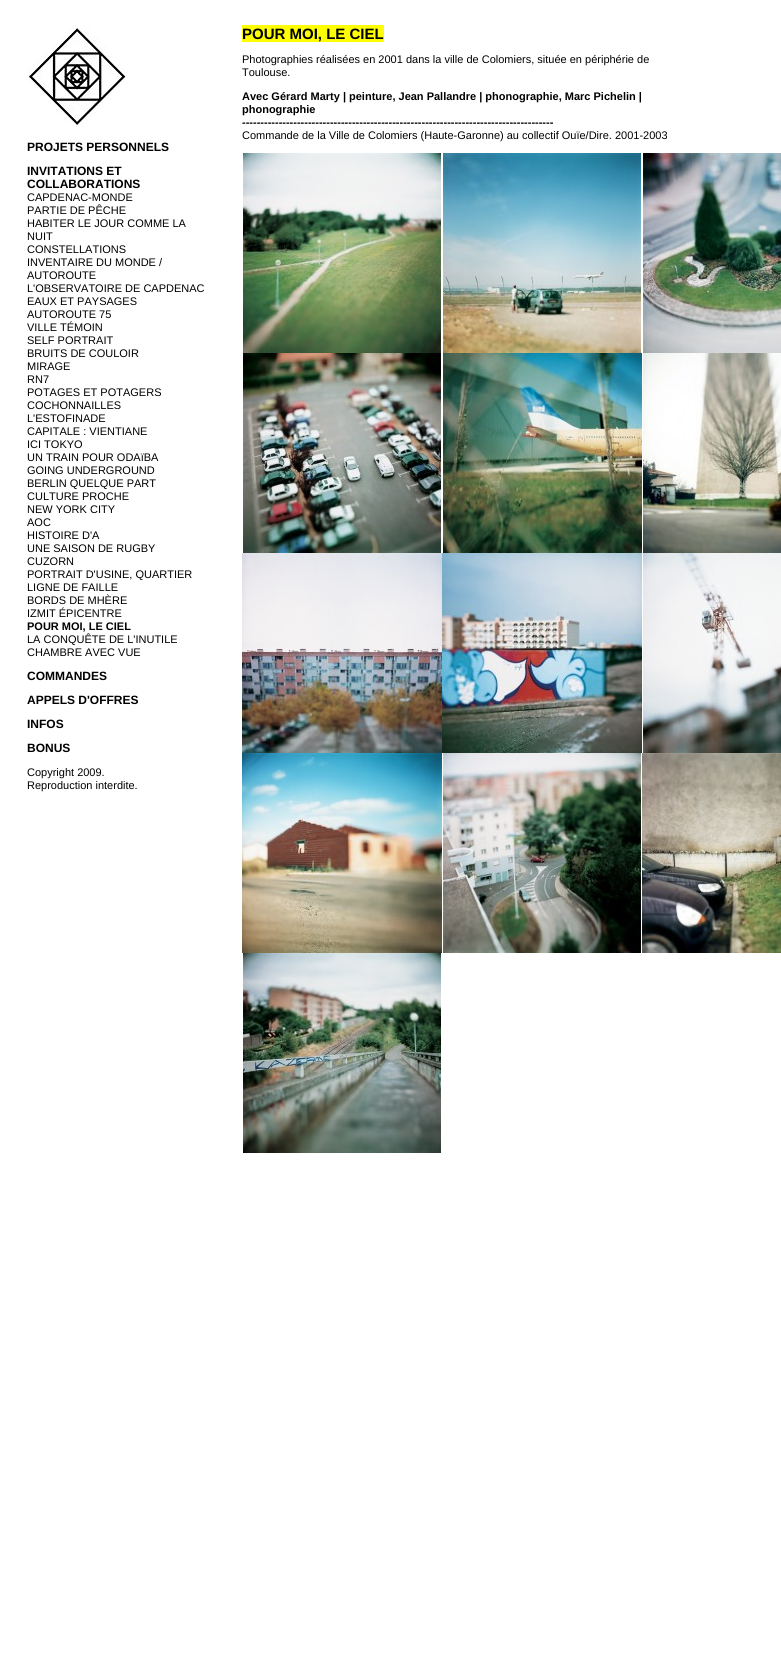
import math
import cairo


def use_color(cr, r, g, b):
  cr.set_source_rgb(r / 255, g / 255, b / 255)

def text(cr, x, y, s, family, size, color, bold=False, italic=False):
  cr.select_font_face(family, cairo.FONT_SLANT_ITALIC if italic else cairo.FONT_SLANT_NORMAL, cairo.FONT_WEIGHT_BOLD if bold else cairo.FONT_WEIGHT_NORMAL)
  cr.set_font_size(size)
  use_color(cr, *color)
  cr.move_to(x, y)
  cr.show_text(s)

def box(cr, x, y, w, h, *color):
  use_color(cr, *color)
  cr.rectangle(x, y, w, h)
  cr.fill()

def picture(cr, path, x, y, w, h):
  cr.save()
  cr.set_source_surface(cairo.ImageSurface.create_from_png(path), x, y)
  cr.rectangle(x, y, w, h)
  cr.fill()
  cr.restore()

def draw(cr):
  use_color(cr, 255, 255, 255)
  cr.paint()
  box(cr, 242, 25, 142, 17, 255, 255, 0)
  picture(cr, "img_01.png", 243, 153, 198, 200)
  picture(cr, "img_02.png", 443, 153, 198, 200)
  picture(cr, "img_03.png", 643, 153, 138, 200)
  picture(cr, "img_04.png", 243, 353, 198, 200)
  picture(cr, "img_05.png", 443, 353, 199, 200)
  picture(cr, "img_06.png", 643, 353, 138, 200)
  picture(cr, "img_07.png", 242, 553, 200, 200)
  picture(cr, "img_08.png", 442, 553, 200, 200)
  picture(cr, "img_09.png", 643, 553, 138, 200)
  picture(cr, "img_10.png", 242, 753, 200, 200)
  picture(cr, "img_11.png", 443, 753, 198, 200)
  picture(cr, "img_12.png", 642, 753, 139, 200)
  picture(cr, "img_13.png", 243, 953, 198, 200)
  picture(cr, "img_14.png", 27, 27, 100, 100)
  text(cr, 242, 39, "POUR MOI, LE CIEL", "Liberation Sans", 15, (0, 0, 0), bold=True)
  text(cr, 242, 63, "Photographies réalisées en 2001 dans la ville de Colomiers, située en périphérie de", "Liberation Sans", 11, (0, 0, 0))
  text(cr, 242, 76, "Toulouse.", "Liberation Sans", 11, (0, 0, 0))
  text(cr, 242, 100, "Avec Gérard Marty | peinture, Jean Pallandre | phonographie, Marc Pichelin |", "Liberation Sans", 11, (0, 0, 0), bold=True)
  text(cr, 242, 113, "phonographie", "Liberation Sans", 11, (0, 0, 0), bold=True)
  text(cr, 242, 126, "-------------------------------------------------------------------------------------", "Liberation Sans", 11, (0, 0, 0), bold=True)
  text(cr, 242, 139, "Commande de la Ville de Colomiers (Haute-Garonne) au collectif Ouïe/Dire. 2001-2003", "Liberation Sans", 11, (0, 0, 0))
  text(cr, 27, 151, "PROJETS PERSONNELS", "Liberation Sans", 12, (0, 0, 0), bold=True)
  text(cr, 27, 175, "INVITATIONS ET", "Liberation Sans", 12, (0, 0, 0), bold=True)
  text(cr, 27, 188, "COLLABORATIONS", "Liberation Sans", 12, (0, 0, 0), bold=True)
  text(cr, 27, 201, "CAPDENAC-MONDE", "Liberation Sans", 11, (0, 0, 0))
  text(cr, 27, 214, "PARTIE DE PÊCHE", "Liberation Sans", 11, (0, 0, 0))
  text(cr, 27, 227, "HABITER LE JOUR COMME LA", "Liberation Sans", 11, (0, 0, 0))
  text(cr, 27, 240, "NUIT", "Liberation Sans", 11, (0, 0, 0))
  text(cr, 27, 253, "CONSTELLATIONS", "Liberation Sans", 11, (0, 0, 0))
  text(cr, 27, 266, "INVENTAIRE DU MONDE /", "Liberation Sans", 11, (0, 0, 0))
  text(cr, 27, 279, "AUTOROUTE", "Liberation Sans", 11, (0, 0, 0))
  text(cr, 27, 292, "L'OBSERVATOIRE DE CAPDENAC", "Liberation Sans", 11, (0, 0, 0))
  text(cr, 27, 305, "EAUX ET PAYSAGES", "Liberation Sans", 11, (0, 0, 0))
  text(cr, 27, 318, "AUTOROUTE 75", "Liberation Sans", 11, (0, 0, 0))
  text(cr, 27, 331, "VILLE TÉMOIN", "Liberation Sans", 11, (0, 0, 0))
  text(cr, 27, 344, "SELF PORTRAIT", "Liberation Sans", 11, (0, 0, 0))
  text(cr, 27, 357, "BRUITS DE COULOIR", "Liberation Sans", 11, (0, 0, 0))
  text(cr, 27, 370, "MIRAGE", "Liberation Sans", 11, (0, 0, 0))
  text(cr, 27, 383, "RN7", "Liberation Sans", 11, (0, 0, 0))
  text(cr, 27, 396, "POTAGES ET POTAGERS", "Liberation Sans", 11, (0, 0, 0))
  text(cr, 27, 409, "COCHONNAILLES", "Liberation Sans", 11, (0, 0, 0))
  text(cr, 27, 422, "L'ESTOFINADE", "Liberation Sans", 11, (0, 0, 0))
  text(cr, 27, 435, "CAPITALE : VIENTIANE", "Liberation Sans", 11, (0, 0, 0))
  text(cr, 27, 448, "ICI TOKYO", "Liberation Sans", 11, (0, 0, 0))
  text(cr, 27, 461, "UN TRAIN POUR ODAïBA", "Liberation Sans", 11, (0, 0, 0))
  text(cr, 27, 474, "GOING UNDERGROUND", "Liberation Sans", 11, (0, 0, 0))
  text(cr, 27, 487, "BERLIN QUELQUE PART", "Liberation Sans", 11, (0, 0, 0))
  text(cr, 27, 500, "CULTURE PROCHE", "Liberation Sans", 11, (0, 0, 0))
  text(cr, 27, 513, "NEW YORK CITY", "Liberation Sans", 11, (0, 0, 0))
  text(cr, 27, 526, "AOC", "Liberation Sans", 11, (0, 0, 0))
  text(cr, 27, 539, "HISTOIRE D'A", "Liberation Sans", 11, (0, 0, 0))
  text(cr, 27, 552, "UNE SAISON DE RUGBY", "Liberation Sans", 11, (0, 0, 0))
  text(cr, 27, 565, "CUZORN", "Liberation Sans", 11, (0, 0, 0))
  text(cr, 27, 578, "PORTRAIT D'USINE, QUARTIER", "Liberation Sans", 11, (0, 0, 0))
  text(cr, 27, 591, "LIGNE DE FAILLE", "Liberation Sans", 11, (0, 0, 0))
  text(cr, 27, 604, "BORDS DE MHÈRE", "Liberation Sans", 11, (0, 0, 0))
  text(cr, 27, 617, "IZMIT ÉPICENTRE", "Liberation Sans", 11, (0, 0, 0))
  text(cr, 27, 630, "POUR MOI, LE CIEL", "Liberation Sans", 11, (0, 0, 0), bold=True)
  text(cr, 27, 643, "LA CONQUÊTE DE L'INUTILE", "Liberation Sans", 11, (0, 0, 0))
  text(cr, 27, 656, "CHAMBRE AVEC VUE", "Liberation Sans", 11, (0, 0, 0))
  text(cr, 27, 680, "COMMANDES", "Liberation Sans", 12, (0, 0, 0), bold=True)
  text(cr, 27, 704, "APPELS D'OFFRES", "Liberation Sans", 12, (0, 0, 0), bold=True)
  text(cr, 27, 728, "INFOS", "Liberation Sans", 12, (0, 0, 0), bold=True)
  text(cr, 27, 752, "BONUS", "Liberation Sans", 12, (0, 0, 0), bold=True)
  text(cr, 27, 776, "Copyright 2009.", "Liberation Sans", 11, (0, 0, 0))
  text(cr, 27, 789, "Reproduction interdite.", "Liberation Sans", 11, (0, 0, 0))


surface = cairo.ImageSurface(cairo.FORMAT_RGB24, 781, 1655)
cr = cairo.Context(surface)
options = cairo.FontOptions()
options.set_hint_metrics(cairo.HINT_METRICS_OFF)
options.set_hint_style(cairo.HINT_STYLE_NONE)
cr.set_font_options(options)
cr.set_miter_limit(4)
draw(cr)
surface.write_to_png("out.png")
